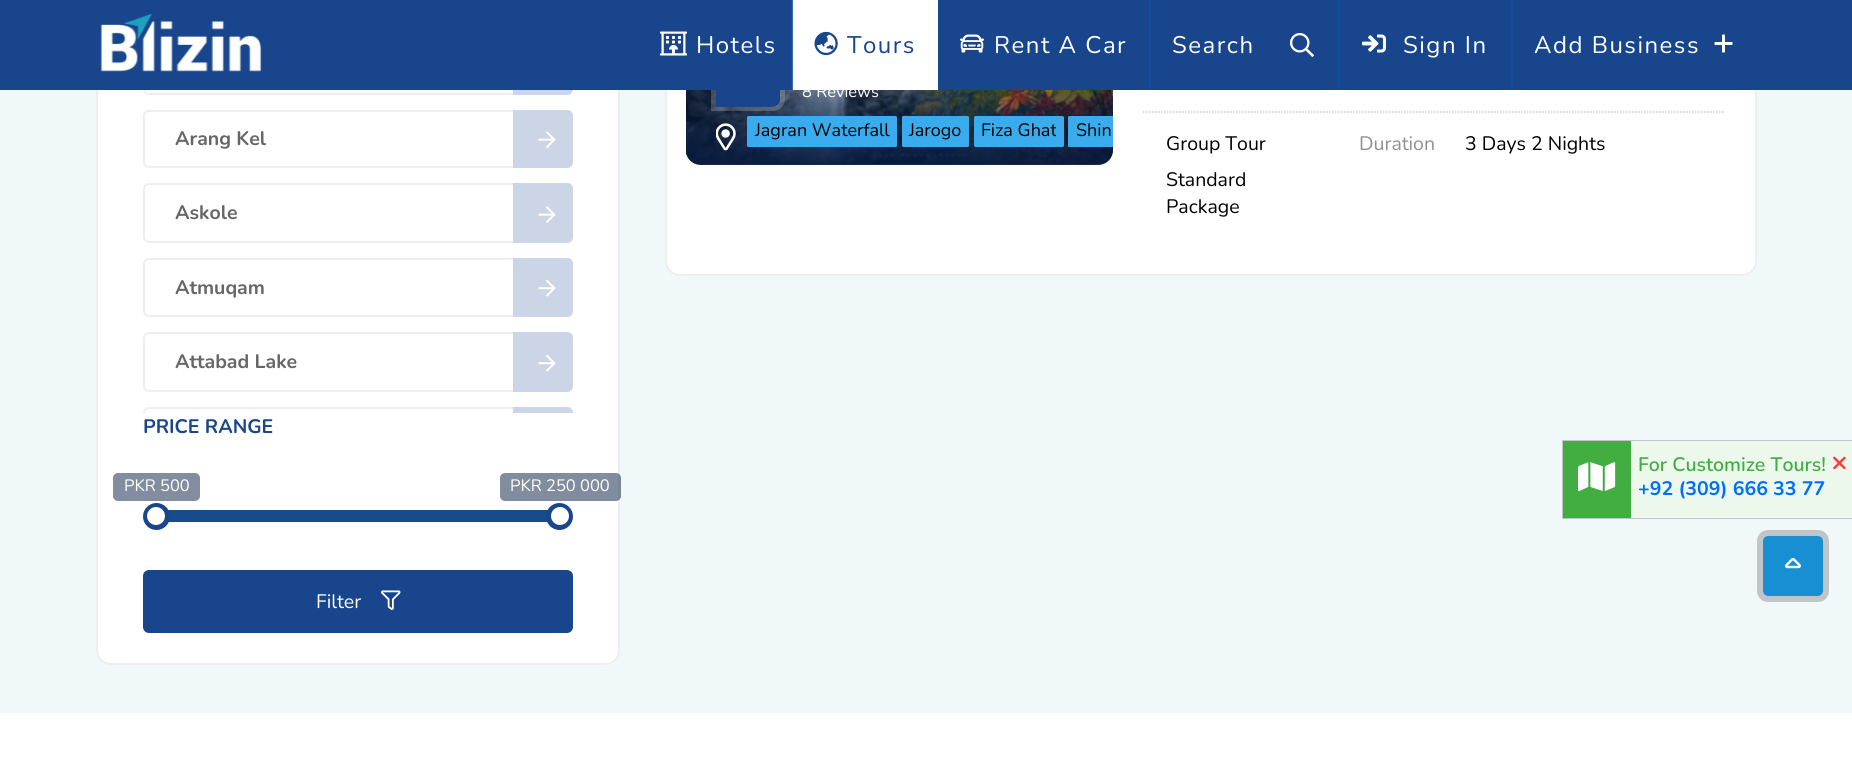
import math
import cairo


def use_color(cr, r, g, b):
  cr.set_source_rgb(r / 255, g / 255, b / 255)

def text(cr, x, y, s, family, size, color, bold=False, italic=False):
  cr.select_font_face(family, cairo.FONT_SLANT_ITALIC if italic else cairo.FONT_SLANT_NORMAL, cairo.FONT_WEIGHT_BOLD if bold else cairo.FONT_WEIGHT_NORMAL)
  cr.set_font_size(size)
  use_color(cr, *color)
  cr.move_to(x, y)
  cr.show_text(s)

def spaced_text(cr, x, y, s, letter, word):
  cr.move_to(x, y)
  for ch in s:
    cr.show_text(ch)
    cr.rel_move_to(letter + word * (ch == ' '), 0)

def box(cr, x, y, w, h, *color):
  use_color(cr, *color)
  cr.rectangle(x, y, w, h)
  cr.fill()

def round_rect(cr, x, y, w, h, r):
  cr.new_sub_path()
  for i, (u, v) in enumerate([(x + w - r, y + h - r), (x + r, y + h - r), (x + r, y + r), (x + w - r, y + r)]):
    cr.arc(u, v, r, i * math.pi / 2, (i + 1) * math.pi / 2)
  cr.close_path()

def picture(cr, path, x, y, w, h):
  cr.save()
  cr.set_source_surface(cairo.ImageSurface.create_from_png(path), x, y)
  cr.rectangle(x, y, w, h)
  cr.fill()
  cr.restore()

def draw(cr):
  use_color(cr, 255, 255, 255)
  cr.paint()
  box(cr, 0, 90, 1852, 623, 240, 248, 250)
  use_color(cr, 255, 255, 255)
  round_rect(cr, 97, -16, 522, 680, 14)
  cr.fill_preserve()
  use_color(cr, 238, 238, 238)
  cr.stroke()
  round_rect(cr, 144, 36, 428, 58, 5)
  cr.stroke()
  use_color(cr, 203, 213, 230)
  cr.new_path()
  cr.move_to(513, 35)
  cr.line_to(567, 35)
  cr.curve_to(570.5, 35, 573, 37.5, 573, 41)
  cr.line_to(573, 89)
  cr.curve_to(573, 92.5, 570.5, 95, 567, 95)
  cr.line_to(513, 95)
  cr.close_path()
  cr.fill()
  round_rect(cr, 144, 111, 428, 56, 5)
  use_color(cr, 238, 238, 238)
  cr.stroke()
  use_color(cr, 203, 213, 230)
  cr.new_path()
  cr.move_to(513, 110)
  cr.line_to(567, 110)
  cr.curve_to(570.5, 110, 573, 112.5, 573, 116)
  cr.line_to(573, 162)
  cr.curve_to(573, 165.5, 570.5, 168, 567, 168)
  cr.line_to(513, 168)
  cr.close_path()
  cr.fill()
  picture(cr, "img_08.png", 538, 131, 18, 17)
  round_rect(cr, 144, 184, 428, 58, 5)
  use_color(cr, 238, 238, 238)
  cr.stroke()
  use_color(cr, 203, 213, 230)
  cr.new_path()
  cr.move_to(513, 183)
  cr.line_to(567, 183)
  cr.curve_to(570.5, 183, 573, 185.5, 573, 189)
  cr.line_to(573, 237)
  cr.curve_to(573, 240.5, 570.5, 243, 567, 243)
  cr.line_to(513, 243)
  cr.close_path()
  cr.fill()
  picture(cr, "img_08.png", 538, 206, 18, 17)
  round_rect(cr, 144, 259, 428, 57, 5)
  use_color(cr, 238, 238, 238)
  cr.stroke()
  use_color(cr, 203, 213, 230)
  cr.new_path()
  cr.move_to(513, 258)
  cr.line_to(567, 258)
  cr.curve_to(570.5, 258, 573, 260.5, 573, 264)
  cr.line_to(573, 311)
  cr.curve_to(573, 314.5, 570.5, 317, 567, 317)
  cr.line_to(513, 317)
  cr.close_path()
  cr.fill()
  picture(cr, "img_09.png", 538, 279, 18, 18)
  round_rect(cr, 144, 333, 428, 58, 5)
  use_color(cr, 238, 238, 238)
  cr.stroke()
  use_color(cr, 203, 213, 230)
  cr.new_path()
  cr.move_to(513, 332)
  cr.line_to(567, 332)
  cr.curve_to(570.5, 332, 573, 334.5, 573, 338)
  cr.line_to(573, 386)
  cr.curve_to(573, 389.5, 570.5, 392, 567, 392)
  cr.line_to(513, 392)
  cr.close_path()
  cr.fill()
  picture(cr, "img_09.png", 538, 354, 18, 18)
  cr.save()
  cr.rectangle(143, 0, 430, 413)
  cr.clip()
  round_rect(cr, 144, 408, 428, 56, 5)
  use_color(cr, 238, 238, 238)
  cr.stroke()
  cr.restore()
  cr.new_path()
  cr.move_to(513, 407)
  cr.line_to(567, 407)
  cr.curve_to(570.5, 407, 573, 409.5, 573, 413)
  cr.line_to(513, 413)
  cr.close_path()
  cr.fill()
  use_color(cr, 131, 141, 160)
  round_rect(cr, 113, 473, 87, 28, 5)
  cr.fill()
  cr.set_source_rgba(0.024, 0.106, 0.255, 0.5)
  round_rect(cr, 500, 473, 121, 28, 5)
  cr.fill()
  box(cr, 168, 510, 380, 12, 24, 75, 139)
  use_color(cr, 24, 69, 139)
  cr.arc(156.5, 516.5, 13.5, 0, 2 * math.pi)
  cr.fill()
  use_color(cr, 255, 255, 255)
  cr.arc(156, 516, 9, 0, 2 * math.pi)
  cr.fill()
  use_color(cr, 24, 69, 139)
  cr.arc(559.5, 516.5, 13.5, 0, 2 * math.pi)
  cr.fill()
  use_color(cr, 255, 255, 255)
  cr.arc(560, 516, 9, 0, 2 * math.pi)
  cr.fill()
  use_color(cr, 24, 69, 139)
  round_rect(cr, 143, 570, 430, 63, 6)
  cr.fill()
  picture(cr, "img_10.png", 381, 590, 20, 20)
  use_color(cr, 255, 255, 255)
  round_rect(cr, 666, -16, 1090, 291, 14)
  cr.fill_preserve()
  use_color(cr, 238, 238, 238)
  cr.stroke()
  picture(cr, "img_12.png", 686, 90, 427, 74)
  gradient = cairo.LinearGradient(899, 36, 899, 165)
  gradient.add_color_stop_rgba(0, 0.024, 0.106, 0.255, 0)
  gradient.add_color_stop_rgba(1, 0.024, 0.106, 0.255, 0.95)
  cr.set_source(gradient)
  cr.new_path()
  cr.move_to(686, 36)
  cr.line_to(1113, 36)
  cr.line_to(1113, 150)
  cr.curve_to(1113, 158.5, 1106.5, 165, 1098, 165)
  cr.line_to(701, 165)
  cr.curve_to(692.5, 165, 686, 158.5, 686, 150)
  cr.close_path()
  cr.fill()
  cr.new_path()
  cr.move_to(723, 40.5)
  cr.line_to(773, 40.5)
  cr.curve_to(778, 40.5, 782.5, 45, 782.5, 50)
  cr.line_to(782.5, 99)
  cr.curve_to(782.5, 104, 778, 108.5, 773, 108.5)
  cr.line_to(713.5, 108.5)
  cr.line_to(713.5, 50)
  cr.curve_to(713.5, 45, 718, 40.5, 723, 40.5)
  cr.close_path()
  cr.set_source_rgba(1, 1, 1, 0.2)
  cr.set_line_width(5)
  cr.stroke()
  use_color(cr, 24, 69, 139)
  cr.new_path()
  cr.move_to(724, 42)
  cr.line_to(772, 42)
  cr.curve_to(776.5, 42, 780, 45.5, 780, 50)
  cr.line_to(780, 99)
  cr.curve_to(780, 103.5, 776.5, 107, 772, 107)
  cr.line_to(716, 107)
  cr.line_to(716, 50)
  cr.curve_to(716, 45.5, 719.5, 42, 724, 42)
  cr.close_path()
  cr.fill()
  picture(cr, "img_11.png", 716, 123, 20, 28)
  use_color(cr, 58, 172, 237)
  round_rect(cr, 747, 116, 150, 31, 1.5)
  cr.fill()
  round_rect(cr, 902, 116, 67, 31, 1.5)
  cr.fill()
  round_rect(cr, 974, 116, 90, 31, 1.5)
  cr.fill()
  cr.new_path()
  cr.move_to(1069.5, 116)
  cr.line_to(1113, 116)
  cr.line_to(1113, 147)
  cr.line_to(1069.5, 147)
  cr.curve_to(1068.5, 147, 1068, 146.5, 1068, 145.5)
  cr.line_to(1068, 117.5)
  cr.curve_to(1068, 116.5, 1068.5, 116, 1069.5, 116)
  cr.close_path()
  cr.fill()
  cr.new_path()
  cr.move_to(1143, 112)
  cr.line_to(1725, 112)
  use_color(cr, 204, 204, 204)
  cr.set_line_width(1.5)
  cr.set_dash([1.5, 1.5])
  cr.stroke()
  cr.rectangle(1563, 441, 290, 77)
  use_color(cr, 192, 198, 200)
  cr.set_line_width(2)
  cr.set_dash([])
  cr.stroke()
  box(cr, 1631, 441, 221, 77, 237, 248, 237)
  box(cr, 1563, 441, 68, 77, 66, 174, 66)
  picture(cr, "img_13.png", 1578, 462, 38, 29)
  round_rect(cr, 1760, 533, 66, 66, 8)
  use_color(cr, 192, 198, 200)
  cr.set_line_width(6)
  cr.stroke()
  use_color(cr, 24, 143, 211)
  round_rect(cr, 1763, 536, 60, 60, 5)
  cr.fill()
  picture(cr, "img_14.png", 1785, 557, 16, 12)
  text(cr, 175, 145, "Arang Kel", "Nunito", 19.5, (102, 102, 102), bold=True)
  text(cr, 175, 219, "Askole", "Nunito", 19.5, (102, 102, 102), bold=True)
  text(cr, 175, 294, "Atmuqam", "Nunito", 19.5, (102, 102, 102), bold=True)
  text(cr, 175, 368, "Attabad Lake", "Nunito", 19.5, (102, 102, 102), bold=True)
  text(cr, 143, 433, "PRICE RANGE", "Nunito", 19.5, (24, 69, 139), bold=True)
  text(cr, 124, 491, "PKR 500", "Nunito", 16.5, (255, 255, 255))
  text(cr, 510, 491, "PKR 250 000", "Nunito", 16.5, (255, 255, 255))
  text(cr, 316, 608, "Filter", "Nunito", 19.5, (255, 255, 255))
  text(cr, 802, 97, "8 Reviews", "Nunito", 16.5, (255, 255, 255))
  box(cr, 0, 0, 1852, 90, 24, 69, 139)
  box(cr, 792, 0, 146, 90, 255, 255, 255)
  cr.set_source_rgba(0.031, 0.322, 0.624, 0.82)
  cr.rectangle(791, 0, 2, 90)
  cr.fill()
  cr.set_font_size(24)
  use_color(cr, 255, 255, 255)
  spaced_text(cr, 696, 53, "Hotels", 1.5, 0)
  picture(cr, "img_02.png", 660, 31, 27, 25)
  use_color(cr, 24, 69, 139)
  spaced_text(cr, 847, 53, "Tours", 1.5, 0)
  picture(cr, "img_03.png", 814, 31, 24, 25)
  use_color(cr, 255, 255, 255)
  spaced_text(cr, 994, 53, "Rent A Car", 1.5, 0)
  picture(cr, "img_04.png", 960, 34, 24, 19)
  picture(cr, "img_05.png", 1290, 33, 24, 24)
  spaced_text(cr, 1172, 53, "Search", 1.5, 0)
  box(cr, 1149, 0, 2, 90, 11, 79, 155)
  use_color(cr, 255, 255, 255)
  spaced_text(cr, 1403, 53, "Sign In", 1.5, 0)
  picture(cr, "img_06.png", 1362, 34, 24, 19)
  box(cr, 1338, 0, 2, 90, 11, 79, 155)
  use_color(cr, 255, 255, 255)
  spaced_text(cr, 1534, 53, "Add Business", 1.5, 0)
  picture(cr, "img_07.png", 1714, 34, 19, 19)
  box(cr, 1511, 0, 2, 90, 11, 79, 155)
  picture(cr, "img_01.png", 100, 13, 162, 59)
  text(cr, 755, 136, "Jagran Waterfall", "Nunito", 18, (0, 0, 0))
  text(cr, 909, 136, "Jarogo", "Nunito", 18, (0, 0, 0))
  cr.save()
  cr.rectangle(981, 119, 75, 25)
  cr.clip()
  text(cr, 981, 136, "Fiza Ghat", "Nunito", 18, (0, 0, 0))
  cr.restore()
  text(cr, 1076, 136, "Shin", "Nunito", 18, (0, 0, 0))
  text(cr, 1166, 150, "Group Tour", "Nunito", 19.5, (0, 0, 0))
  text(cr, 1166, 186, "Standard", "Nunito", 19.5, (0, 0, 0))
  text(cr, 1166, 213, "Package", "Nunito", 19.5, (0, 0, 0))
  text(cr, 1359, 150, "Duration", "Nunito", 19.5, (144, 144, 144))
  text(cr, 1465, 150, "3 Days 2 Nights", "Nunito", 19.5, (0, 0, 0))
  text(cr, 1638, 471, "For Customize Tours!", "Nunito SemiBold", 19.5, (66, 174, 66))
  text(cr, 1831, 471, "×", "Nunito", 28, (251, 62, 59), bold=True)
  text(cr, 1638, 495, "+92 (309) 666 33 77", "Nunito", 19.5, (0, 109, 255), bold=True)


surface = cairo.ImageSurface(cairo.FORMAT_RGB24, 1852, 775)
cr = cairo.Context(surface)
options = cairo.FontOptions()
options.set_hint_metrics(cairo.HINT_METRICS_OFF)
options.set_hint_style(cairo.HINT_STYLE_NONE)
cr.set_font_options(options)
cr.set_miter_limit(4)
draw(cr)
surface.write_to_png("out.png")
